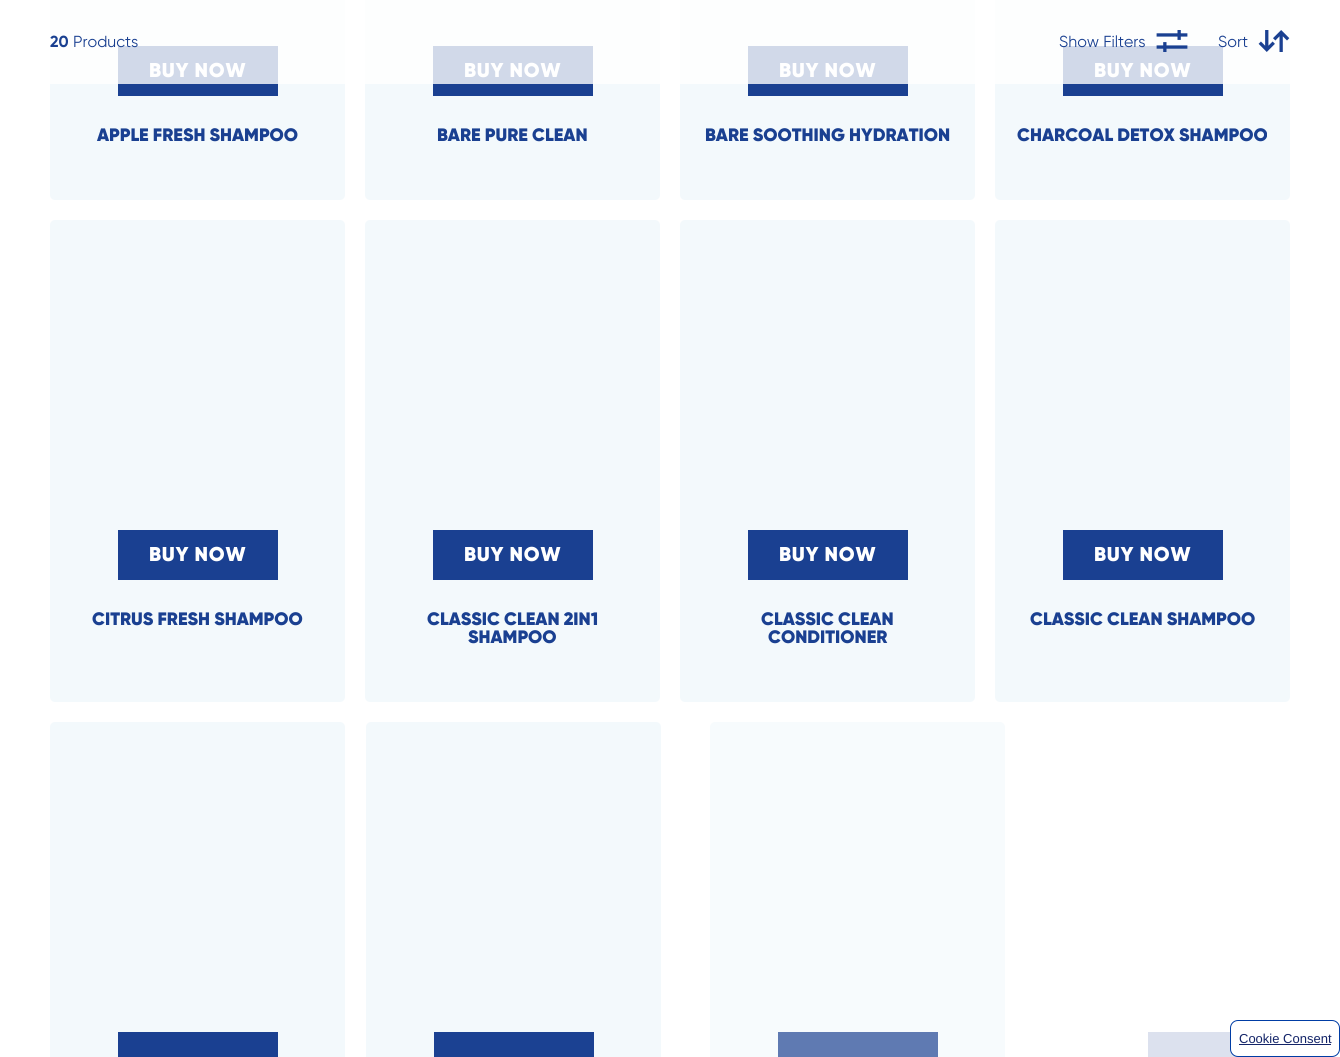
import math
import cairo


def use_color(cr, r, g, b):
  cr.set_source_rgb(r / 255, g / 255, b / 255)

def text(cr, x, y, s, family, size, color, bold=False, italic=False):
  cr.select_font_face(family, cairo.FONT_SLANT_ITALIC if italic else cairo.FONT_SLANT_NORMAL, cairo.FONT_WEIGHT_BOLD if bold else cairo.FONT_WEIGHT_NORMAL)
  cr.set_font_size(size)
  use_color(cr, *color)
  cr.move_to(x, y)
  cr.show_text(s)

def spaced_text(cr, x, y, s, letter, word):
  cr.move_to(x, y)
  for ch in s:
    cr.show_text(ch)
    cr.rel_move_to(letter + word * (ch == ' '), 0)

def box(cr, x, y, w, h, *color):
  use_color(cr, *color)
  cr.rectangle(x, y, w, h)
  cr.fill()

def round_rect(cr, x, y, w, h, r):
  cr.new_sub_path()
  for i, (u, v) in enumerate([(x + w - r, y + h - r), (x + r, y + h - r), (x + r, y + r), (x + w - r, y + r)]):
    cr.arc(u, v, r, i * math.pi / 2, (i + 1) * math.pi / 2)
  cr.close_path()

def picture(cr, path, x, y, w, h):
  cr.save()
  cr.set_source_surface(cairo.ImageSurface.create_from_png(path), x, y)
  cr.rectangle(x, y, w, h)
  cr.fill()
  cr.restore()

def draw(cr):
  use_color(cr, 255, 255, 255)
  cr.paint()
  use_color(cr, 243, 249, 252)
  round_rect(cr, 995, -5, 295, 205, 5)
  cr.fill()
  box(cr, 995, 0, 295, 84, 253, 254, 254)
  box(cr, 1063, 46, 160, 38, 209, 217, 233)
  picture(cr, "img_01.png", 1156, 30, 32, 22)
  picture(cr, "img_02.png", 1258, 30, 32, 22)
  use_color(cr, 243, 249, 252)
  round_rect(cr, 50, -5, 295, 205, 5)
  cr.fill()
  box(cr, 50, 0, 295, 84, 253, 254, 254)
  box(cr, 118, 84, 160, 12, 26, 64, 145)
  box(cr, 118, 46, 160, 38, 209, 217, 233)
  use_color(cr, 243, 249, 252)
  round_rect(cr, 365, -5, 295, 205, 5)
  cr.fill()
  box(cr, 365, 0, 295, 84, 253, 254, 254)
  box(cr, 433, 84, 160, 12, 26, 64, 145)
  box(cr, 433, 46, 160, 38, 209, 217, 233)
  use_color(cr, 243, 249, 252)
  round_rect(cr, 680, -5, 295, 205, 5)
  cr.fill()
  box(cr, 680, 0, 295, 84, 253, 254, 254)
  box(cr, 748, 84, 160, 12, 26, 64, 145)
  box(cr, 748, 46, 160, 38, 209, 217, 233)
  box(cr, 1063, 84, 160, 12, 26, 64, 145)
  use_color(cr, 243, 249, 252)
  round_rect(cr, 50, 220, 295, 482, 5)
  cr.fill()
  box(cr, 118, 530, 160, 50, 26, 64, 145)
  use_color(cr, 243, 249, 252)
  round_rect(cr, 365, 220, 295, 482, 5)
  cr.fill()
  box(cr, 433, 530, 160, 50, 26, 64, 145)
  use_color(cr, 243, 249, 252)
  round_rect(cr, 680, 220, 295, 482, 5)
  cr.fill()
  box(cr, 748, 530, 160, 50, 26, 64, 145)
  use_color(cr, 243, 249, 252)
  round_rect(cr, 995, 220, 295, 482, 5)
  cr.fill()
  box(cr, 1063, 530, 160, 50, 26, 64, 145)
  use_color(cr, 243, 249, 252)
  round_rect(cr, 50, 722, 295, 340, 5)
  cr.fill()
  box(cr, 118, 1032, 160, 25, 26, 64, 145)
  use_color(cr, 243, 249, 252)
  round_rect(cr, 366, 722, 295, 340, 5)
  cr.fill()
  box(cr, 434, 1032, 160, 25, 27, 65, 146)
  use_color(cr, 247, 251, 253)
  round_rect(cr, 710, 722, 295, 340, 5)
  cr.fill()
  box(cr, 778, 1032, 160, 25, 95, 122, 178)
  box(cr, 1148, 1032, 90, 25, 220, 225, 238)
  use_color(cr, 255, 255, 255)
  round_rect(cr, 1230.5, 1020.5, 109, 36, 7.5)
  cr.fill_preserve()
  use_color(cr, 0, 61, 165)
  cr.set_line_width(1)
  cr.stroke()
  box(cr, 1239, 1044, 92, 1, 19, 36, 104)
  text(cr, 50, 47, "20", "Gilroy", 16, (26, 64, 145), bold=True)
  text(cr, 73, 47, "Products", "Gilroy", 16, (26, 64, 145))
  text(cr, 1059, 47, "Show Filters", "Gilroy", 16, (26, 64, 145))
  text(cr, 1218, 47, "Sort", "Gilroy", 16, (26, 64, 145))
  cr.select_font_face("Gilroy Black")
  cr.set_font_size(20)
  use_color(cr, 255, 255, 255)
  spaced_text(cr, 149, 77, "BUY NOW", 0.75, 0)
  text(cr, 97, 141, "APPLE FRESH SHAMPOO", "Gilroy Black", 18, (26, 64, 145))
  cr.set_font_size(20)
  use_color(cr, 255, 255, 255)
  spaced_text(cr, 464, 77, "BUY NOW", 0.75, 0)
  text(cr, 437, 141, "BARE PURE CLEAN", "Gilroy Black", 18, (26, 64, 145))
  cr.set_font_size(20)
  use_color(cr, 255, 255, 255)
  spaced_text(cr, 779, 77, "BUY NOW", 0.75, 0)
  text(cr, 705, 141, "BARE SOOTHING HYDRATION", "Gilroy Black", 18, (26, 64, 145))
  cr.set_font_size(20)
  use_color(cr, 255, 255, 255)
  spaced_text(cr, 1094, 77, "BUY NOW", 0.75, 0)
  text(cr, 1017, 141, "CHARCOAL DETOX SHAMPOO", "Gilroy Black", 18, (26, 64, 145))
  cr.set_font_size(20)
  use_color(cr, 255, 255, 255)
  spaced_text(cr, 149, 561, "BUY NOW", 0.75, 0)
  text(cr, 92, 625, "CITRUS FRESH SHAMPOO", "Gilroy Black", 18, (26, 64, 145))
  cr.set_font_size(20)
  use_color(cr, 255, 255, 255)
  spaced_text(cr, 464, 561, "BUY NOW", 0.75, 0)
  text(cr, 427, 625, "CLASSIC CLEAN 2IN1", "Gilroy Black", 18, (26, 64, 145))
  text(cr, 468, 643, "SHAMPOO", "Gilroy Black", 18, (26, 64, 145))
  cr.set_font_size(20)
  use_color(cr, 255, 255, 255)
  spaced_text(cr, 779, 561, "BUY NOW", 0.75, 0)
  text(cr, 761, 625, "CLASSIC CLEAN", "Gilroy Black", 18, (26, 64, 145))
  text(cr, 768, 643, "CONDITIONER", "Gilroy Black", 18, (26, 64, 145))
  cr.set_font_size(20)
  use_color(cr, 255, 255, 255)
  spaced_text(cr, 1094, 561, "BUY NOW", 0.75, 0)
  text(cr, 1030, 625, "CLASSIC CLEAN SHAMPOO", "Gilroy Black", 18, (26, 64, 145))
  text(cr, 1239, 1043, "Cookie Consent", "Liberation Sans", 13, (19, 36, 104))


surface = cairo.ImageSurface(cairo.FORMAT_RGB24, 1340, 1057)
cr = cairo.Context(surface)
options = cairo.FontOptions()
options.set_hint_metrics(cairo.HINT_METRICS_OFF)
options.set_hint_style(cairo.HINT_STYLE_NONE)
cr.set_font_options(options)
cr.set_miter_limit(4)
draw(cr)
surface.write_to_png("out.png")
